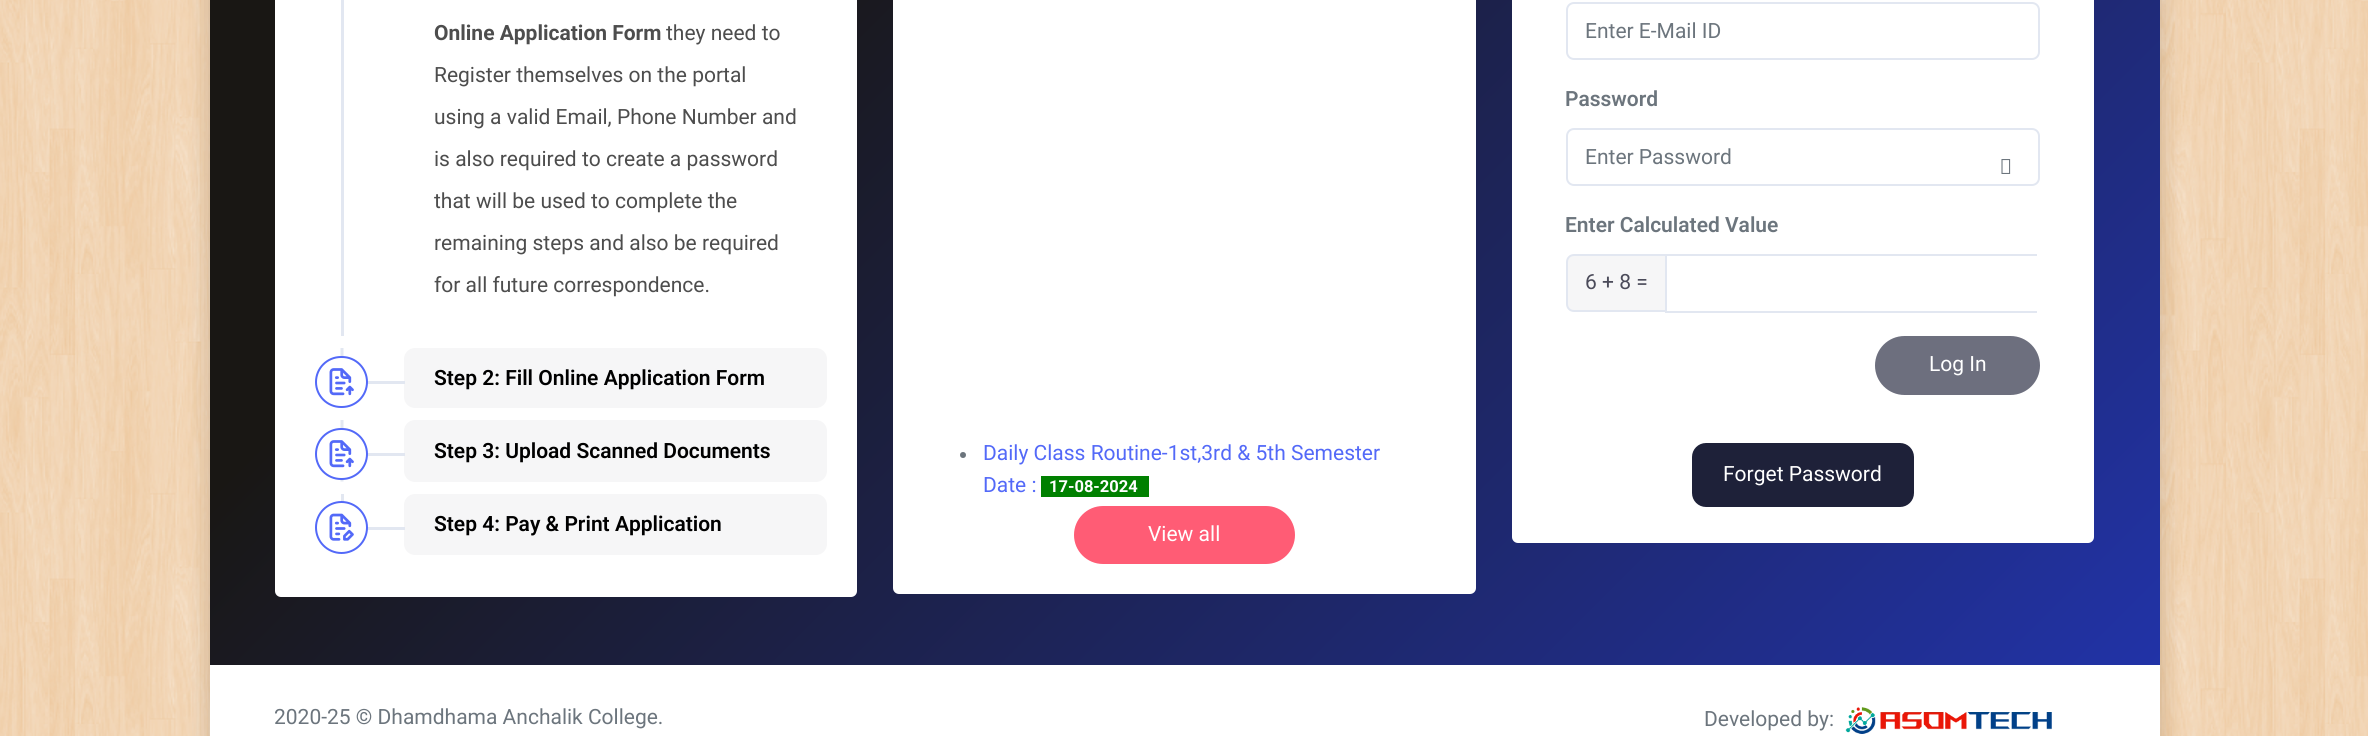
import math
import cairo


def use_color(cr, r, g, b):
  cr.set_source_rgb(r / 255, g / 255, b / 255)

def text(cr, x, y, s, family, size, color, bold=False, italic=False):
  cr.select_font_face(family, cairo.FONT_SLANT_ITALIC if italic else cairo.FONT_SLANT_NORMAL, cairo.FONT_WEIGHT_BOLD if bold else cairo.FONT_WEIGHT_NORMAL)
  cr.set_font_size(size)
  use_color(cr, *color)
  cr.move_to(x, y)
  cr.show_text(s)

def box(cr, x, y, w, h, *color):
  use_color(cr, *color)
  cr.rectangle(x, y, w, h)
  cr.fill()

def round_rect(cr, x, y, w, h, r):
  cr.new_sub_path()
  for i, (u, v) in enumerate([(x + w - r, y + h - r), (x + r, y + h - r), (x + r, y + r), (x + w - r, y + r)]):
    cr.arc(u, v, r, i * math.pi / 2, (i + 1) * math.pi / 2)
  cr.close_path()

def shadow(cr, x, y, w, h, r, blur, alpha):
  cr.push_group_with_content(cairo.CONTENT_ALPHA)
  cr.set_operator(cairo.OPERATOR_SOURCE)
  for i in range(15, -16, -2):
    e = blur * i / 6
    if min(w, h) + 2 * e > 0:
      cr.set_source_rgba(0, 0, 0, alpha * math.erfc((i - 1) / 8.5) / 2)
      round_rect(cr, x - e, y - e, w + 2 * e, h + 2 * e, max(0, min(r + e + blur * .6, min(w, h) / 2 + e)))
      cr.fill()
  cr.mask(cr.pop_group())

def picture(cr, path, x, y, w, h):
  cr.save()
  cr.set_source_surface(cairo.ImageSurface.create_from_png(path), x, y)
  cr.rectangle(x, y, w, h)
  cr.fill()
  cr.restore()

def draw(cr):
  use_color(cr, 255, 255, 255)
  cr.paint()
  picture(cr, "img_01.png", 0, 0, 2368, 736)
  use_color(cr, 0, 0, 0)
  shadow(cr, 210, -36, 1950, 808, 0, 12, 0.15)
  gradient = cairo.LinearGradient(1938, 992, 432, -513)
  gradient.add_color_stop_rgba(0, 0.133, 0.204, 0.682, 1)
  gradient.add_color_stop_rgba(0.74, 0.098, 0.09, 0.078, 1)
  cr.set_source(gradient)
  cr.rectangle(210, 0, 1950, 665)
  cr.fill()
  use_color(cr, 255, 255, 255)
  round_rect(cr, 275, -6, 582, 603, 6)
  cr.fill()
  box(cr, 341, 0, 3, 336, 226, 231, 241)
  cr.new_path()
  cr.move_to(342, 348)
  cr.line_to(342, 408)
  cr.set_line_width(3)
  cr.set_dash([9, 8])
  cr.stroke()
  use_color(cr, 246, 246, 247)
  round_rect(cr, 404, 348, 423, 60, 11)
  cr.fill()
  box(cr, 367, 381, 38, 3, 226, 231, 241)
  use_color(cr, 255, 255, 255)
  round_rect(cr, 316, 357, 51, 50, 25)
  cr.fill_preserve()
  use_color(cr, 83, 105, 248)
  cr.set_line_width(2)
  cr.set_dash([])
  cr.stroke()
  picture(cr, "img_02.png", 329, 368, 25, 28)
  cr.new_path()
  cr.move_to(342, 420)
  cr.line_to(342, 481.5)
  use_color(cr, 226, 231, 241)
  cr.set_line_width(3)
  cr.set_dash([9, 4.12])
  cr.stroke()
  use_color(cr, 246, 246, 247)
  round_rect(cr, 404, 420, 423, 62, 11)
  cr.fill()
  box(cr, 367, 453, 38, 3, 226, 231, 241)
  use_color(cr, 255, 255, 255)
  round_rect(cr, 316, 429, 51, 50, 25)
  cr.fill_preserve()
  use_color(cr, 83, 105, 248)
  cr.set_line_width(2)
  cr.set_dash([])
  cr.stroke()
  picture(cr, "img_02.png", 329, 440, 25, 28)
  box(cr, 341, 494, 3, 8, 226, 231, 241)
  use_color(cr, 246, 246, 247)
  round_rect(cr, 404, 494, 423, 61, 11)
  cr.fill()
  box(cr, 367, 527, 38, 3, 226, 231, 241)
  use_color(cr, 255, 255, 255)
  cr.arc(341.5, 527.5, 25.5, 0, 2 * math.pi)
  cr.fill_preserve()
  use_color(cr, 83, 105, 248)
  cr.stroke()
  picture(cr, "img_03.png", 329, 513, 25, 28)
  use_color(cr, 255, 255, 255)
  round_rect(cr, 893, -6, 583, 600, 6)
  cr.fill()
  use_color(cr, 108, 117, 125)
  cr.arc(963, 455, 3, 0, 2 * math.pi)
  cr.fill()
  box(cr, 1041, 476, 108, 21, 0, 128, 0)
  use_color(cr, 255, 92, 117)
  round_rect(cr, 1075, 507, 219, 56, 28)
  cr.fill_preserve()
  cr.stroke()
  use_color(cr, 255, 255, 255)
  round_rect(cr, 1512, -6, 582, 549, 6)
  cr.fill()
  round_rect(cr, 1567, 3, 472, 56, 7)
  use_color(cr, 226, 231, 241)
  cr.stroke()
  round_rect(cr, 1567, 129, 472, 56, 7)
  cr.stroke()
  picture(cr, "img_04.png", 2001, 159, 10, 15)
  use_color(cr, 246, 246, 247)
  cr.new_path()
  cr.move_to(1574, 255)
  cr.line_to(1666, 255)
  cr.line_to(1666, 311)
  cr.line_to(1574, 311)
  cr.curve_to(1570, 311, 1567, 308, 1567, 304)
  cr.line_to(1567, 262)
  cr.curve_to(1567, 258, 1570, 255, 1574, 255)
  cr.close_path()
  cr.fill_preserve()
  use_color(cr, 226, 231, 241)
  cr.stroke()
  use_color(cr, 255, 255, 255)
  cr.new_path()
  cr.move_to(1666, 255)
  cr.line_to(2033, 255)
  cr.curve_to(2037, 255, 2040, 258, 2040, 261)
  cr.line_to(2040, 305)
  cr.curve_to(2040, 308, 2037, 310, 2033, 310)
  cr.line_to(1666, 310)
  cr.close_path()
  cr.fill()
  box(cr, 1665, 254, 372, 2, 226, 231, 241)
  box(cr, 1665, 311, 372, 2, 226, 231, 241)
  box(cr, 1666, 254, 1, 58, 226, 231, 241)
  use_color(cr, 109, 111, 126)
  round_rect(cr, 1876, 337, 163, 57, 28.5)
  cr.fill_preserve()
  cr.stroke()
  use_color(cr, 30, 33, 57)
  round_rect(cr, 1693, 444, 220, 62, 13)
  cr.fill_preserve()
  cr.stroke()
  box(cr, 210, 665, 1950, 71, 255, 255, 255)
  picture(cr, "img_05.png", 1845, 707, 207, 27)
  text(cr, 434, 40, "Online Application Form", "Roboto", 21, (77, 77, 77), bold=True)
  text(cr, 666, 40, "they need to", "Roboto", 21, (77, 77, 77))
  text(cr, 434, 82, "Register themselves on the portal", "Roboto", 21, (77, 77, 77))
  text(cr, 434, 124, "using a valid Email, Phone Number and", "Roboto", 21, (77, 77, 77))
  text(cr, 434, 166, "is also required to create a password", "Roboto", 21, (77, 77, 77))
  text(cr, 434, 208, "that will be used to complete the", "Roboto", 21, (77, 77, 77))
  text(cr, 434, 250, "remaining steps and also be required", "Roboto", 21, (77, 77, 77))
  text(cr, 434, 292, "for all future correspondence.", "Roboto", 21, (77, 77, 77))
  text(cr, 434, 385, "Step 2: Fill Online Application Form", "Roboto SemiBold", 21, (0, 0, 0))
  text(cr, 434, 458, "Step 3: Upload Scanned Documents", "Roboto SemiBold", 21, (0, 0, 0))
  text(cr, 434, 531, "Step 4: Pay & Print Application", "Roboto SemiBold", 21, (0, 0, 0))
  text(cr, 983, 460, "Daily Class Routine-1st,3rd & 5th Semester", "Roboto", 21, (83, 105, 248))
  text(cr, 983, 492, "Date :", "Roboto", 21, (83, 105, 248))
  text(cr, 1049, 492, "17-08-2024", "Roboto", 16.5, (255, 255, 255), bold=True)
  text(cr, 1148, 541, "View all", "Roboto", 21, (255, 255, 255))
  text(cr, 1585, 38, "Enter E-Mail ID", "Roboto", 21, (108, 117, 125))
  text(cr, 1565, 106, "Password", "Roboto SemiBold", 21, (108, 117, 125))
  text(cr, 1585, 164, "Enter Password", "Roboto", 21, (108, 117, 125))
  text(cr, 1565, 232, "Enter Calculated Value", "Roboto SemiBold", 21, (108, 117, 125))
  text(cr, 1585, 289, "6 + 8 =", "Roboto", 21, (75, 75, 90))
  text(cr, 1929, 371, "Log In", "Roboto", 21, (255, 255, 255))
  text(cr, 1723, 481, "Forget Password", "Roboto", 21, (255, 255, 255))
  text(cr, 274, 724, "2020-25 © Dhamdhama Anchalik College.", "Roboto", 21, (108, 117, 125))
  text(cr, 1704, 726, "Developed by:", "Roboto", 21, (108, 117, 125))


surface = cairo.ImageSurface(cairo.FORMAT_RGB24, 2368, 736)
cr = cairo.Context(surface)
options = cairo.FontOptions()
options.set_hint_metrics(cairo.HINT_METRICS_OFF)
options.set_hint_style(cairo.HINT_STYLE_NONE)
cr.set_font_options(options)
cr.set_miter_limit(4)
draw(cr)
surface.write_to_png("out.png")
